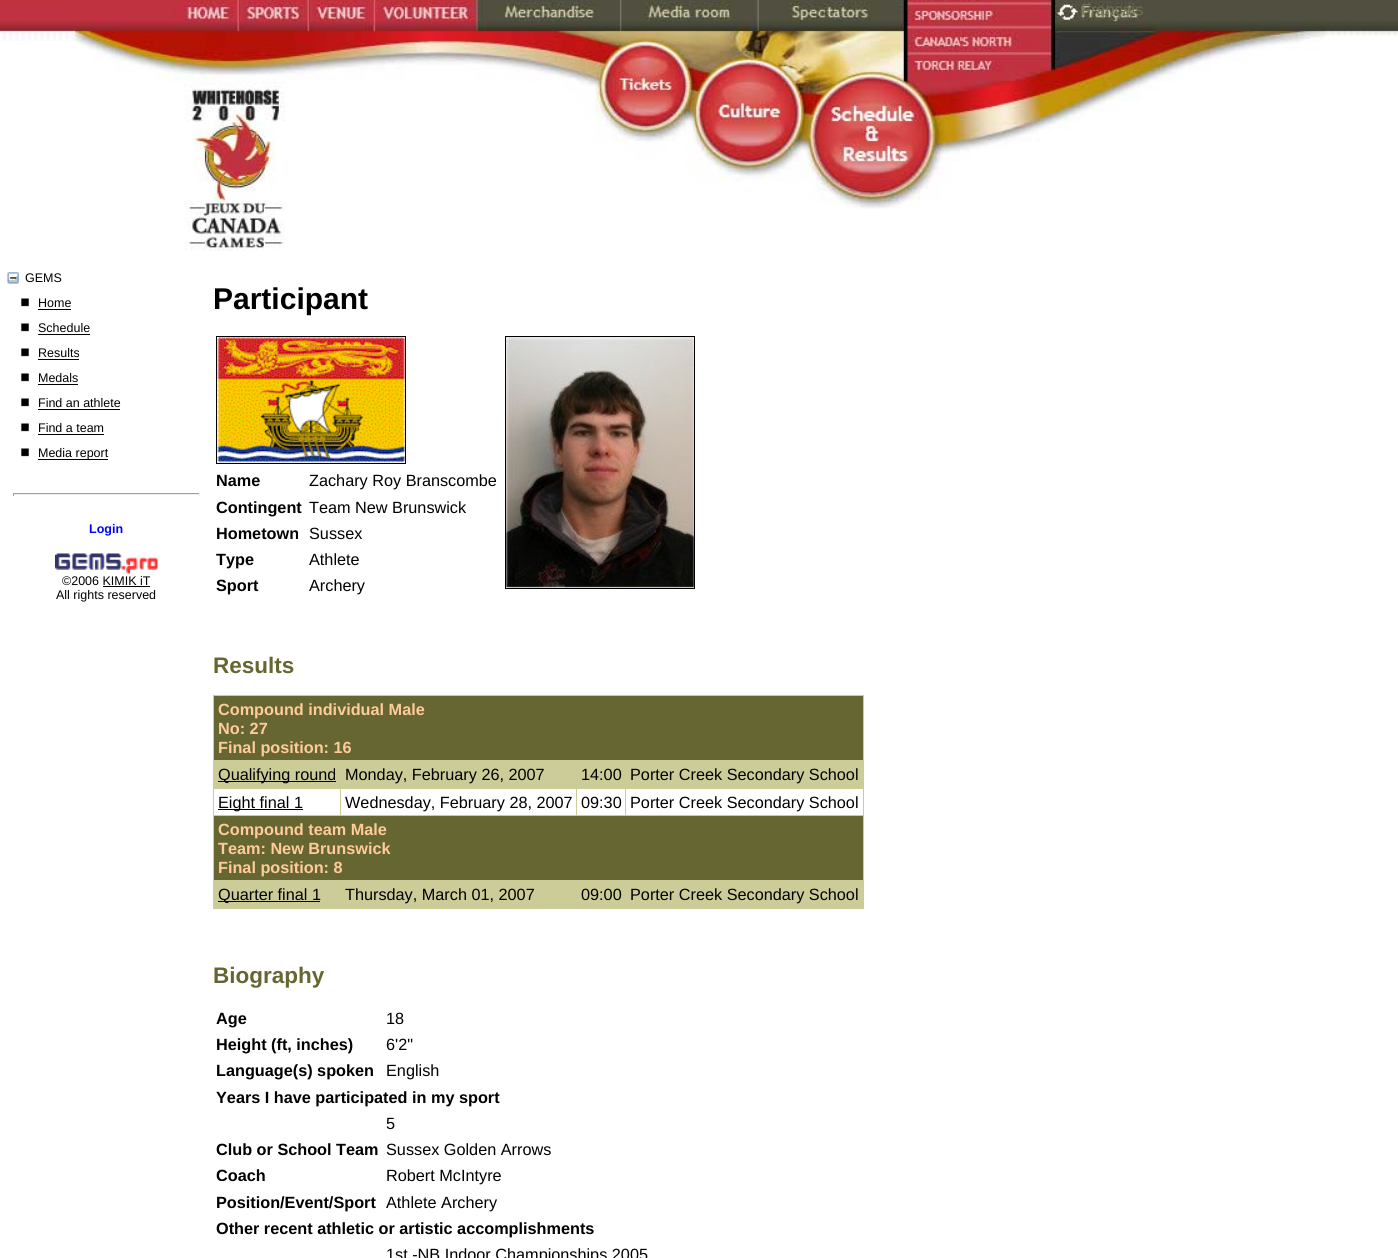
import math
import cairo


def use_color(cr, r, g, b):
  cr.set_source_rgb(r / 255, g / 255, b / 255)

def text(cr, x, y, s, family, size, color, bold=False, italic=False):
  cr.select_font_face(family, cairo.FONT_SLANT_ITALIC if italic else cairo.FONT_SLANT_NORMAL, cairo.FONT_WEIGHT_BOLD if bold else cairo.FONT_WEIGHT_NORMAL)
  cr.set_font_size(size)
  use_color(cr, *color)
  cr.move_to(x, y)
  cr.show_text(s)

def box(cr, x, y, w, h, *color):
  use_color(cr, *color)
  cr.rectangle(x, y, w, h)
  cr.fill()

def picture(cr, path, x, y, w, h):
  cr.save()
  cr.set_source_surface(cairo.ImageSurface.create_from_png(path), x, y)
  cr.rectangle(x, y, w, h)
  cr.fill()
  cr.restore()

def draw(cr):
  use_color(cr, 255, 255, 255)
  cr.paint()
  picture(cr, "img_01.png", 0, 0, 75, 41)
  picture(cr, "img_02.png", 75, 0, 625, 251)
  picture(cr, "img_03.png", 1325, 0, 73, 36)
  picture(cr, "img_04.png", 700, 0, 625, 209)
  picture(cr, "img_05.png", 7, 272, 12, 12)
  picture(cr, "img_06.png", 21, 298, 8, 9)
  box(cr, 38, 309, 33, 1, 0, 0, 0)
  picture(cr, "img_06.png", 21, 323, 8, 9)
  box(cr, 38, 334, 52, 1, 0, 0, 0)
  picture(cr, "img_06.png", 21, 348, 8, 9)
  box(cr, 38, 359, 41, 1, 0, 0, 0)
  picture(cr, "img_06.png", 21, 373, 8, 9)
  box(cr, 38, 384, 40, 1, 0, 0, 0)
  picture(cr, "img_06.png", 21, 398, 8, 9)
  box(cr, 38, 409, 82, 1, 0, 0, 0)
  picture(cr, "img_06.png", 21, 423, 8, 9)
  box(cr, 38, 434, 66, 1, 0, 0, 0)
  picture(cr, "img_06.png", 21, 448, 8, 9)
  box(cr, 38, 459, 70, 1, 0, 0, 0)
  box(cr, 13, 493, 187, 1, 159, 159, 159)
  box(cr, 199, 493, 1, 3, 238, 238, 238)
  box(cr, 13, 494, 187, 1, 238, 238, 238)
  box(cr, 13, 493, 1, 3, 159, 159, 159)
  picture(cr, "img_07.png", 55, 553, 103, 21)
  box(cr, 103, 586, 47, 1, 0, 0, 0)
  cr.rectangle(216.5, 336.5, 189, 127)
  cr.set_line_width(1)
  cr.stroke()
  picture(cr, "img_08.png", 217, 337, 188, 126)
  cr.rectangle(505.5, 336.5, 189, 252)
  cr.stroke()
  picture(cr, "img_09.png", 506, 337, 188, 251)
  box(cr, 214, 696, 649, 64, 102, 102, 51)
  box(cr, 213, 695, 651, 1, 204, 204, 153)
  box(cr, 213, 760, 651, 1, 204, 204, 153)
  box(cr, 863, 695, 1, 66, 204, 204, 153)
  box(cr, 213, 815, 651, 1, 204, 204, 153)
  box(cr, 213, 880, 651, 1, 204, 204, 153)
  box(cr, 213, 880, 1, 29, 204, 204, 153)
  box(cr, 213, 815, 1, 66, 204, 204, 153)
  box(cr, 213, 788, 1, 28, 204, 204, 153)
  box(cr, 213, 760, 1, 29, 204, 204, 153)
  box(cr, 213, 695, 1, 66, 204, 204, 153)
  box(cr, 214, 761, 650, 28, 204, 204, 153)
  box(cr, 218, 781, 118, 1, 0, 0, 0)
  box(cr, 218, 809, 85, 1, 0, 0, 0)
  box(cr, 340, 788, 1, 28, 204, 204, 153)
  box(cr, 576, 788, 1, 28, 204, 204, 153)
  box(cr, 625, 788, 1, 28, 204, 204, 153)
  box(cr, 214, 816, 649, 64, 102, 102, 51)
  box(cr, 863, 788, 1, 93, 204, 204, 153)
  box(cr, 214, 881, 650, 28, 204, 204, 153)
  box(cr, 218, 901, 102, 1, 0, 0, 0)
  text(cr, 1081, 15, "Français", "Liberation Sans", 16.25, (111, 111, 88))
  text(cr, 25, 282, "GEMS", "Liberation Sans", 12.5, (0, 0, 0))
  text(cr, 38, 307, "Home", "Liberation Sans", 12.5, (0, 0, 0))
  text(cr, 38, 332, "Schedule", "Liberation Sans", 12.5, (0, 0, 0))
  text(cr, 38, 357, "Results", "Liberation Sans", 12.5, (0, 0, 0))
  text(cr, 38, 382, "Medals", "Liberation Sans", 12.5, (0, 0, 0))
  text(cr, 38, 407, "Find an athlete", "Liberation Sans", 12.5, (0, 0, 0))
  text(cr, 38, 432, "Find a team", "Liberation Sans", 12.5, (0, 0, 0))
  text(cr, 38, 457, "Media report", "Liberation Sans", 12.5, (0, 0, 0))
  text(cr, 89, 533, "Login", "Liberation Sans", 12.5, (0, 0, 255), bold=True)
  text(cr, 62, 585, "©2006 KIMIK iT", "Liberation Sans", 12.5, (0, 0, 0))
  text(cr, 56, 599, "All rights reserved", "Liberation Sans", 12.5, (0, 0, 0))
  text(cr, 213, 309, "Participant", "Liberation Sans", 30, (0, 0, 0), bold=True)
  text(cr, 216, 486, "Name", "Liberation Sans", 16.25, (0, 0, 0), bold=True)
  text(cr, 309, 486, "Zachary Roy Branscombe", "Liberation Sans", 16.25, (0, 0, 0))
  text(cr, 216, 513, "Contingent", "Liberation Sans", 16.25, (0, 0, 0), bold=True)
  text(cr, 309, 513, "Team New Brunswick", "Liberation Sans", 16.25, (0, 0, 0))
  text(cr, 216, 539, "Hometown", "Liberation Sans", 16.25, (0, 0, 0), bold=True)
  text(cr, 309, 539, "Sussex", "Liberation Sans", 16.25, (0, 0, 0))
  text(cr, 216, 565, "Type", "Liberation Sans", 16.25, (0, 0, 0), bold=True)
  text(cr, 309, 565, "Athlete", "Liberation Sans", 16.25, (0, 0, 0))
  text(cr, 216, 591, "Sport", "Liberation Sans", 16.25, (0, 0, 0), bold=True)
  text(cr, 309, 591, "Archery", "Liberation Sans", 16.25, (0, 0, 0))
  text(cr, 213, 673, "Results", "Liberation Sans", 22.5, (102, 102, 51), bold=True)
  text(cr, 218, 715, "Compound individual Male", "Liberation Sans", 16.25, (255, 204, 153), bold=True)
  text(cr, 218, 734, "No: 27", "Liberation Sans", 16.25, (255, 204, 153), bold=True)
  text(cr, 218, 753, "Final position: 16", "Liberation Sans", 16.25, (255, 204, 153), bold=True)
  text(cr, 218, 780, "Qualifying round", "Liberation Sans", 16.25, (0, 0, 0))
  text(cr, 345, 780, "Monday, February 26, 2007", "Liberation Sans", 16.25, (0, 0, 0))
  text(cr, 581, 780, "14:00", "Liberation Sans", 16.25, (0, 0, 0))
  text(cr, 630, 780, "Porter Creek Secondary School", "Liberation Sans", 16.25, (0, 0, 0))
  text(cr, 218, 808, "Eight final 1", "Liberation Sans", 16.25, (0, 0, 0))
  text(cr, 345, 808, "Wednesday, February 28, 2007", "Liberation Sans", 16.25, (0, 0, 0))
  text(cr, 581, 808, "09:30", "Liberation Sans", 16.25, (0, 0, 0))
  text(cr, 630, 808, "Porter Creek Secondary School", "Liberation Sans", 16.25, (0, 0, 0))
  text(cr, 218, 835, "Compound team Male", "Liberation Sans", 16.25, (255, 204, 153), bold=True)
  text(cr, 218, 854, "Team: New Brunswick", "Liberation Sans", 16.25, (255, 204, 153), bold=True)
  text(cr, 218, 873, "Final position: 8", "Liberation Sans", 16.25, (255, 204, 153), bold=True)
  text(cr, 218, 900, "Quarter final 1", "Liberation Sans", 16.25, (0, 0, 0))
  text(cr, 345, 900, "Thursday, March 01, 2007", "Liberation Sans", 16.25, (0, 0, 0))
  text(cr, 581, 900, "09:00", "Liberation Sans", 16.25, (0, 0, 0))
  text(cr, 630, 900, "Porter Creek Secondary School", "Liberation Sans", 16.25, (0, 0, 0))
  text(cr, 213, 983, "Biography", "Liberation Sans", 22.5, (102, 102, 51), bold=True)
  text(cr, 216, 1024, "Age", "Liberation Sans", 16.25, (0, 0, 0), bold=True)
  text(cr, 386, 1024, "18", "Liberation Sans", 16.25, (0, 0, 0))
  text(cr, 216, 1050, "Height (ft, inches)", "Liberation Sans", 16.25, (0, 0, 0), bold=True)
  text(cr, 386, 1050, "6'2\"", "Liberation Sans", 16.25, (0, 0, 0))
  text(cr, 216, 1076, "Language(s) spoken", "Liberation Sans", 16.25, (0, 0, 0), bold=True)
  text(cr, 386, 1076, "English", "Liberation Sans", 16.25, (0, 0, 0))
  text(cr, 216, 1103, "Years I have participated in my sport", "Liberation Sans", 16.25, (0, 0, 0), bold=True)
  text(cr, 386, 1129, "5", "Liberation Sans", 16.25, (0, 0, 0))
  text(cr, 216, 1155, "Club or School Team", "Liberation Sans", 16.25, (0, 0, 0), bold=True)
  text(cr, 386, 1155, "Sussex Golden Arrows", "Liberation Sans", 16.25, (0, 0, 0))
  text(cr, 216, 1181, "Coach", "Liberation Sans", 16.25, (0, 0, 0), bold=True)
  text(cr, 386, 1181, "Robert McIntyre", "Liberation Sans", 16.25, (0, 0, 0))
  text(cr, 216, 1208, "Position/Event/Sport", "Liberation Sans", 16.25, (0, 0, 0), bold=True)
  text(cr, 386, 1208, "Athlete Archery", "Liberation Sans", 16.25, (0, 0, 0))
  text(cr, 216, 1234, "Other recent athletic or artistic accomplishments", "Liberation Sans", 16.25, (0, 0, 0), bold=True)
  text(cr, 386, 1260, "1st -NB Indoor Championships 2005", "Liberation Sans", 16.25, (0, 0, 0))


surface = cairo.ImageSurface(cairo.FORMAT_RGB24, 1398, 1258)
cr = cairo.Context(surface)
options = cairo.FontOptions()
options.set_hint_metrics(cairo.HINT_METRICS_OFF)
options.set_hint_style(cairo.HINT_STYLE_NONE)
cr.set_font_options(options)
cr.set_miter_limit(4)
draw(cr)
surface.write_to_png("out.png")
